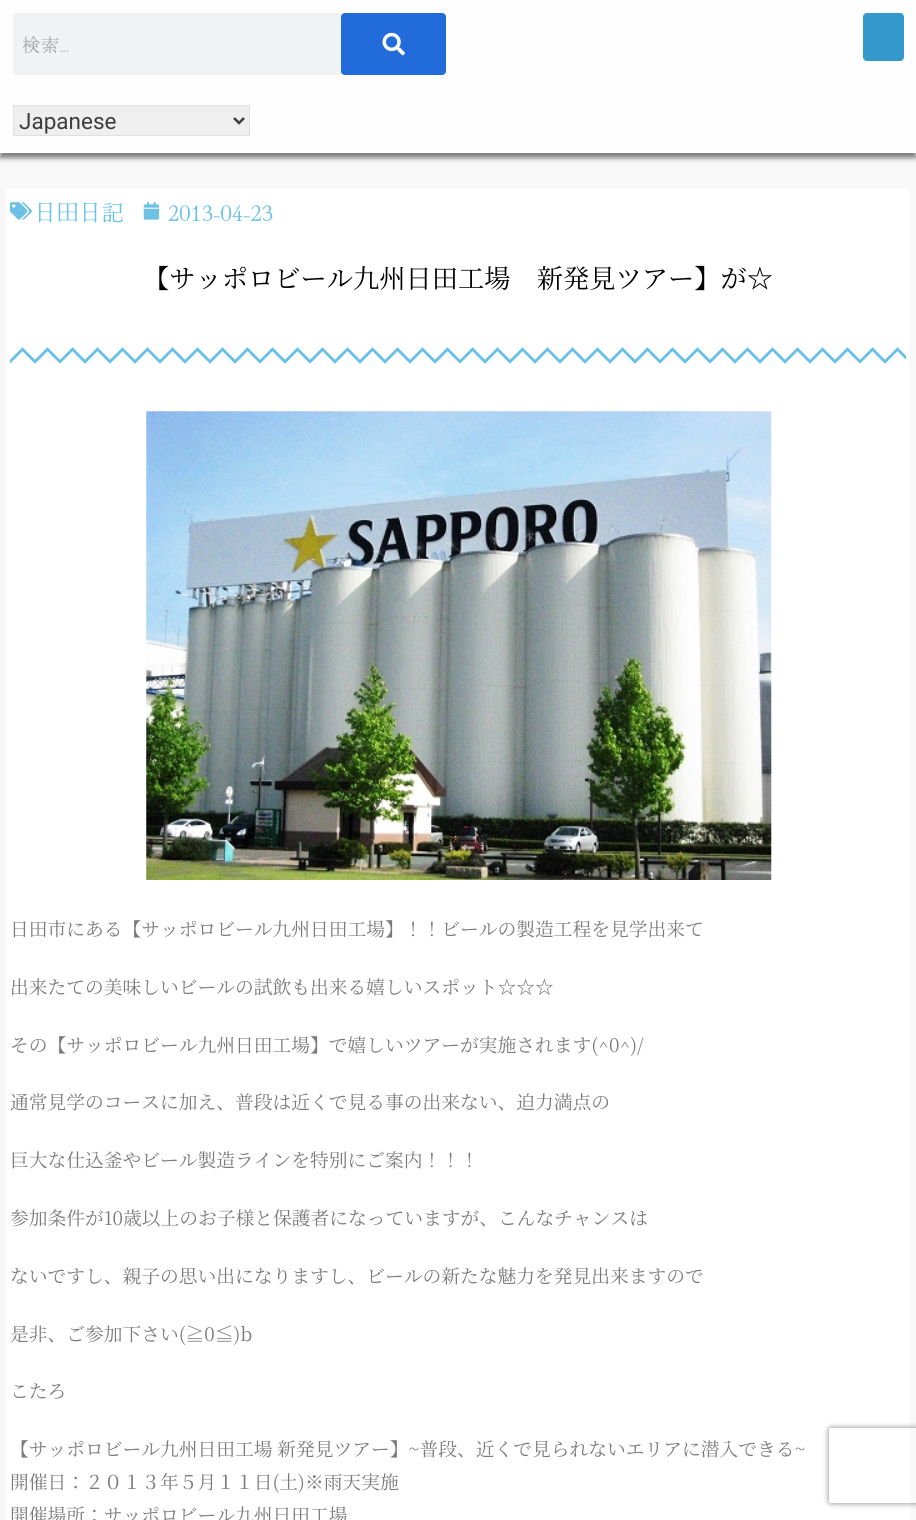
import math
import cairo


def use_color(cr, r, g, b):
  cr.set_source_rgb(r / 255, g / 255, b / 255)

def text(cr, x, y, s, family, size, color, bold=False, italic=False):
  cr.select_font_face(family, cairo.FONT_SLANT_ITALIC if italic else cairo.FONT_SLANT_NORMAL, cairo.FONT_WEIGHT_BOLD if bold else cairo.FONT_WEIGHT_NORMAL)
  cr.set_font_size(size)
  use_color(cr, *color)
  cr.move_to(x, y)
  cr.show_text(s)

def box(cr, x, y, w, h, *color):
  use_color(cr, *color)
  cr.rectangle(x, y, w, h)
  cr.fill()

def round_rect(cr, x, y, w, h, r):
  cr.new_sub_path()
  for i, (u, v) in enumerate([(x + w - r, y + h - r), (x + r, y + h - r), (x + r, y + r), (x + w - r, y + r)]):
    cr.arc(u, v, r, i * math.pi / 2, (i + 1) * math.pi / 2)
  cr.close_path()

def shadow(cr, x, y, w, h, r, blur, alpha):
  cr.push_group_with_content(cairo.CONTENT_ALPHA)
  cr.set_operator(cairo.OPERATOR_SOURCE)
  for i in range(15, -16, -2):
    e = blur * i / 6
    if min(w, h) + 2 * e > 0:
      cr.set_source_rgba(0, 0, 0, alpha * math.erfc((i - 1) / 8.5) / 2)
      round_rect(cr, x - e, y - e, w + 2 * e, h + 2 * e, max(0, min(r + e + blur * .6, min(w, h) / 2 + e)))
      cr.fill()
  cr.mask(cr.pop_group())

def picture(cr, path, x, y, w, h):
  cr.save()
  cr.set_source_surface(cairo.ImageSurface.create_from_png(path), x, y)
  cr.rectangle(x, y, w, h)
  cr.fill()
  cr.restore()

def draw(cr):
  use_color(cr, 248, 248, 248)
  cr.paint()
  cr.save()
  cr.set_fill_rule(cairo.FILL_RULE_EVEN_ODD)
  cr.new_path()
  cr.move_to(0, 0)
  cr.line_to(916, 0)
  cr.line_to(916, 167)
  cr.line_to(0, 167)
  cr.close_path()
  cr.move_to(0, 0)
  cr.line_to(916, 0)
  cr.line_to(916, 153)
  cr.line_to(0, 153)
  cr.close_path()
  cr.clip()
  use_color(cr, 0, 0, 0)
  shadow(cr, 0, 5, 916, 153, 0, 2.5, 0.5)
  cr.restore()
  cr.set_source_rgba(1, 1, 1, 0.81)
  cr.rectangle(0, 0, 916, 153)
  cr.fill()
  use_color(cr, 241, 242, 243)
  round_rect(cr, 13, 13, 433, 62, 4)
  cr.fill()
  use_color(cr, 33, 107, 219)
  round_rect(cr, 341, 13, 105, 62, 4)
  cr.fill()
  picture(cr, "img_01.png", 382, 32, 23, 24)
  use_color(cr, 239, 239, 239)
  cr.rectangle(13.5, 105.5, 236, 30)
  cr.fill_preserve()
  use_color(cr, 224, 224, 224)
  cr.set_line_width(1)
  cr.stroke()
  cr.new_path()
  cr.move_to(234, 118)
  cr.line_to(239, 123)
  cr.line_to(244, 118)
  use_color(cr, 61, 61, 61)
  cr.set_line_width(2.5)
  cr.stroke()
  use_color(cr, 51, 153, 204)
  round_rect(cr, 863, 13, 41, 48, 4)
  cr.fill()
  cr.set_source_rgba(1, 1, 1, 0.5)
  cr.rectangle(0, 152, 916, 1)
  cr.fill()
  box(cr, 6, 189, 904, 1331, 255, 255, 255)
  picture(cr, "img_02.png", 10, 202, 22, 18)
  picture(cr, "img_03.png", 143, 202, 17, 18)
  picture(cr, "img_04.png", 10, 347, 896, 17)
  picture(cr, "img_05.png", 146, 411, 626, 469)
  cr.save()
  cr.set_fill_rule(cairo.FILL_RULE_EVEN_ODD)
  cr.new_path()
  cr.move_to(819, 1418)
  cr.line_to(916, 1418)
  cr.line_to(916, 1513)
  cr.line_to(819, 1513)
  cr.close_path()
  cr.move_to(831.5, 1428)
  cr.line_to(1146.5, 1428)
  cr.curve_to(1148, 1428, 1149, 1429, 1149, 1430.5)
  cr.line_to(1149, 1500.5)
  cr.curve_to(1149, 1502, 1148, 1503, 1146.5, 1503)
  cr.line_to(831.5, 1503)
  cr.curve_to(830, 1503, 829, 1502, 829, 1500.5)
  cr.line_to(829, 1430.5)
  cr.curve_to(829, 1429, 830, 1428, 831.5, 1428)
  cr.close_path()
  cr.clip()
  use_color(cr, 128, 128, 128)
  shadow(cr, 829, 1428, 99, 75, 2.5, 3, 1)
  cr.restore()
  cr.save()
  cr.rectangle(23, 31, 291, 27)
  cr.clip()
  text(cr, 22, 52, "検索...", "Hina Mincho", 18.75, (170, 170, 170))
  cr.restore()
  text(cr, 19, 129, "Japanese", "Roboto", 22.5, (61, 61, 61))
  text(cr, 34, 221, "日田日記", "Hina Mincho", 22.5, (103, 192, 233))
  text(cr, 168, 221, "2013-04-23", "Hina Mincho", 22.5, (103, 192, 233))
  text(cr, 143, 288, "【サッポロビール九州日田工場　新発見ツアー】が☆", "Noto Serif JP", 26.25, (0, 0, 0))
  text(cr, 10, 936, "日田市にある【サッポロビール九州日田工場】！！ビールの製造工程を見学出来て", "Noto Serif JP", 18.75, (122, 122, 122))
  text(cr, 10, 994, "出来たての美味しいビールの試飲も出来る嬉しいスポット☆☆☆", "Noto Serif JP", 18.75, (122, 122, 122))
  text(cr, 10, 1052, "その【サッポロビール九州日田工場】で嬉しいツアーが実施されます(^0^)/", "Noto Serif JP", 18.75, (122, 122, 122))
  text(cr, 10, 1109, "通常見学のコースに加え、普段は近くで見る事の出来ない、迫力満点の", "Noto Serif JP", 18.75, (122, 122, 122))
  text(cr, 10, 1167, "巨大な仕込釜やビール製造ラインを特別にご案内！！！", "Noto Serif JP", 18.75, (122, 122, 122))
  text(cr, 10, 1225, "参加条件が10歳以上のお子様と保護者になっていますが、こんなチャンスは", "Noto Serif JP", 18.75, (122, 122, 122))
  text(cr, 10, 1283, "ないですし、親子の思い出になりますし、ビールの新たな魅力を発見出来ますので", "Noto Serif JP", 18.75, (122, 122, 122))
  text(cr, 10, 1341, "是非、ご参加下さい(≧0≦)b", "Noto Serif JP", 18.75, (122, 122, 122))
  text(cr, 10, 1398, "こたろ", "Noto Serif JP", 18.75, (122, 122, 122))
  text(cr, 10, 1456, "【サッポロビール九州日田工場 新発見ツアー】~普段、近くで見られないエリアに潜入できる~", "Noto Serif JP", 18.75, (122, 122, 122))
  text(cr, 10, 1489, "開催日：２０１３年５月１１日(土)※雨天実施", "Noto Serif JP", 18.75, (122, 122, 122))
  text(cr, 10, 1522, "開催場所：サッポロビール九州日田工場", "Noto Serif JP", 18.75, (122, 122, 122))


surface = cairo.ImageSurface(cairo.FORMAT_RGB24, 916, 1520)
cr = cairo.Context(surface)
options = cairo.FontOptions()
options.set_hint_metrics(cairo.HINT_METRICS_OFF)
options.set_hint_style(cairo.HINT_STYLE_NONE)
cr.set_font_options(options)
cr.set_miter_limit(4)
draw(cr)
surface.write_to_png("out.png")
